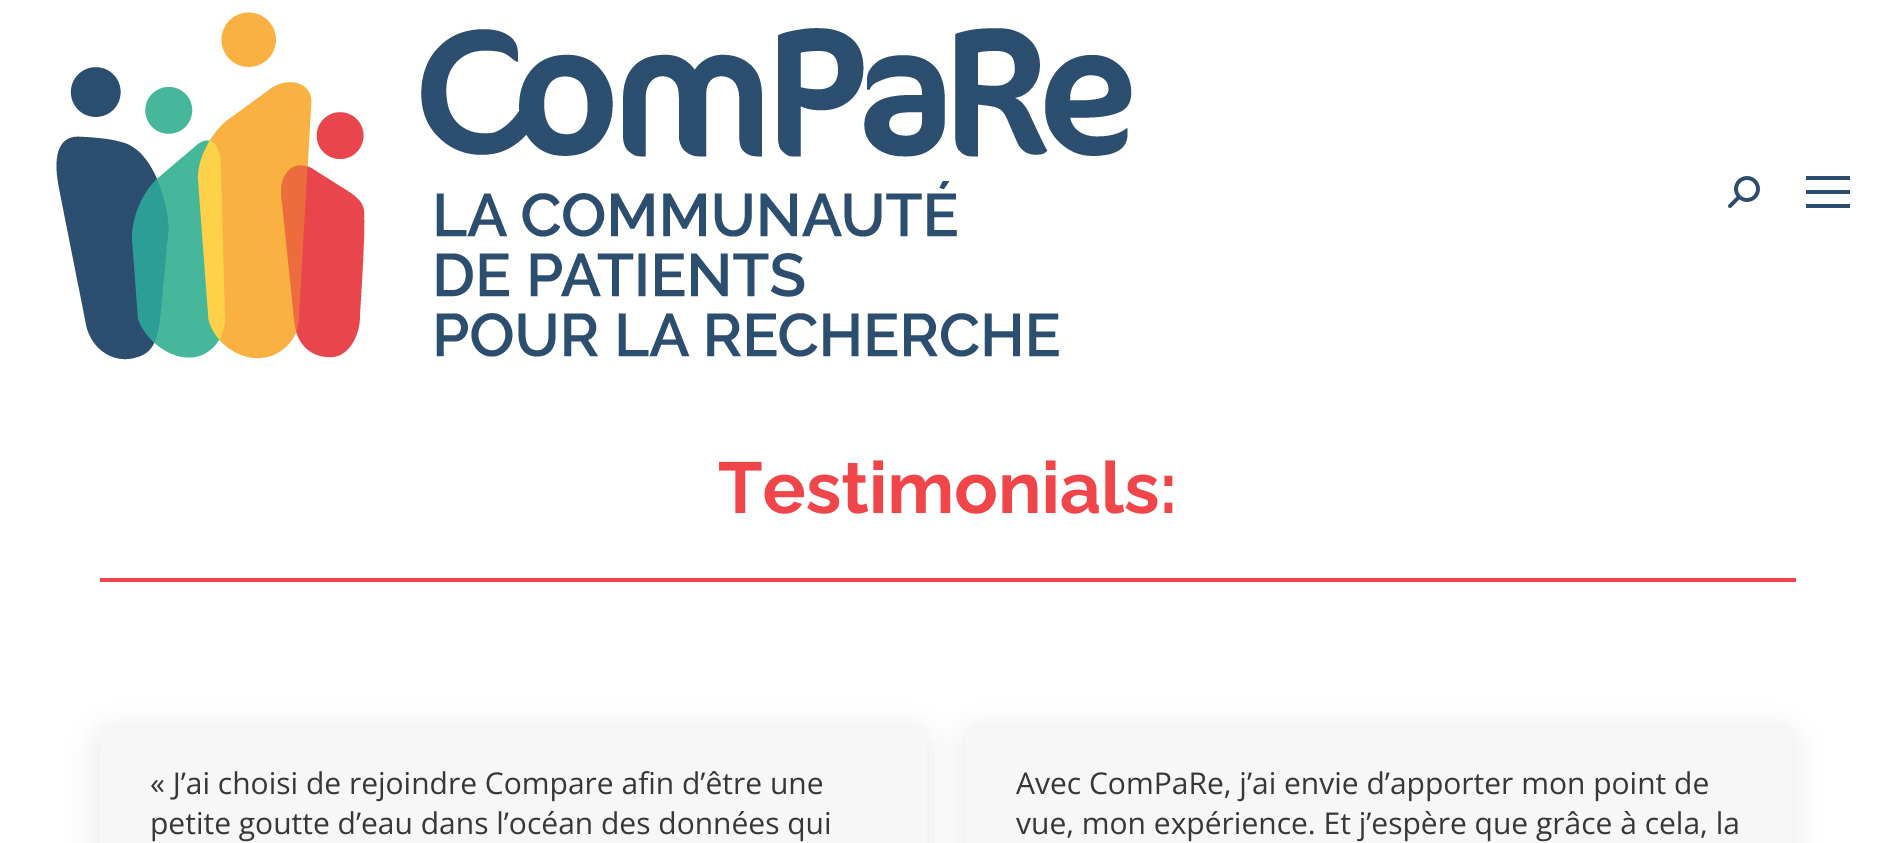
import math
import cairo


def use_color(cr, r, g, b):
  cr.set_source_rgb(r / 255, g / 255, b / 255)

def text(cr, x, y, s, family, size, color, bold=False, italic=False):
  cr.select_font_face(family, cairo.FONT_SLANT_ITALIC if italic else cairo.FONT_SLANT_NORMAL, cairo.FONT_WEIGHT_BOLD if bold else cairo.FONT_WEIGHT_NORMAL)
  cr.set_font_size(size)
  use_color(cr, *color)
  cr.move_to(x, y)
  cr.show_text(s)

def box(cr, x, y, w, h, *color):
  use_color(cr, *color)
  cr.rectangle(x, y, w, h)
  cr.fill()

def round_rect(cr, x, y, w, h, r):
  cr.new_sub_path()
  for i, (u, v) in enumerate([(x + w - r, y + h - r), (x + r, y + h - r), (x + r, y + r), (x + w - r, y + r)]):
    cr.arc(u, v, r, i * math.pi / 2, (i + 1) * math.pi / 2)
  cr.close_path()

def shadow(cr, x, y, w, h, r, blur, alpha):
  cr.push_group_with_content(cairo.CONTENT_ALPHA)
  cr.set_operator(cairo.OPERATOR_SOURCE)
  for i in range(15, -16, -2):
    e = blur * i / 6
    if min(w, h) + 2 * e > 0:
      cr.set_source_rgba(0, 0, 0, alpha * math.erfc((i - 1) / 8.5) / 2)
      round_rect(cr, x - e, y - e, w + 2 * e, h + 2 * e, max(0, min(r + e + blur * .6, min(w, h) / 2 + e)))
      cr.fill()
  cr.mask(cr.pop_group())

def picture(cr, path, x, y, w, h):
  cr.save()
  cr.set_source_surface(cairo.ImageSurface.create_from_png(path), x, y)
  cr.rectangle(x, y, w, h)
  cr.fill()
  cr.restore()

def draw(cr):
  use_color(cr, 255, 255, 255)
  cr.paint()
  picture(cr, "img_01.png", 56, 9, 1076, 351)
  picture(cr, "img_02.png", 1728, 176, 32, 32)
  box(cr, 1806, 176, 44, 4, 44, 77, 110)
  box(cr, 1806, 190, 44, 4, 44, 77, 110)
  box(cr, 1806, 204, 44, 4, 44, 77, 110)
  box(cr, 100, 578, 1696, 4, 240, 69, 73)
  use_color(cr, 0, 0, 0)
  shadow(cr, 100, 734, 826, 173, 10, 18, 0.1)
  use_color(cr, 247, 247, 247)
  round_rect(cr, 100, 722, 826, 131, 10)
  cr.fill()
  use_color(cr, 0, 0, 0)
  shadow(cr, 966, 734, 826, 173, 10, 18, 0.1)
  use_color(cr, 247, 247, 247)
  round_rect(cr, 966, 722, 826, 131, 10)
  cr.fill()
  text(cr, 718, 513, "Testimonials:", "Raleway", 72, (240, 69, 73), bold=True)
  text(cr, 150, 794, "« J’ai choisi de rejoindre Compare afin d’être une", "Open Sans", 30, (58, 53, 54))
  text(cr, 150, 834, "petite goutte d’eau dans l’océan des données qui", "Open Sans", 30, (58, 53, 54))
  text(cr, 1016, 794, "Avec ComPaRe, j’ai envie d’apporter mon point de", "Open Sans", 30, (58, 53, 54))
  text(cr, 1016, 834, "vue, mon expérience. Et j’espère que grâce à cela, la", "Open Sans", 30, (58, 53, 54))


surface = cairo.ImageSurface(cairo.FORMAT_RGB24, 1896, 843)
cr = cairo.Context(surface)
options = cairo.FontOptions()
options.set_hint_metrics(cairo.HINT_METRICS_OFF)
options.set_hint_style(cairo.HINT_STYLE_NONE)
cr.set_font_options(options)
cr.set_miter_limit(4)
draw(cr)
surface.write_to_png("out.png")
